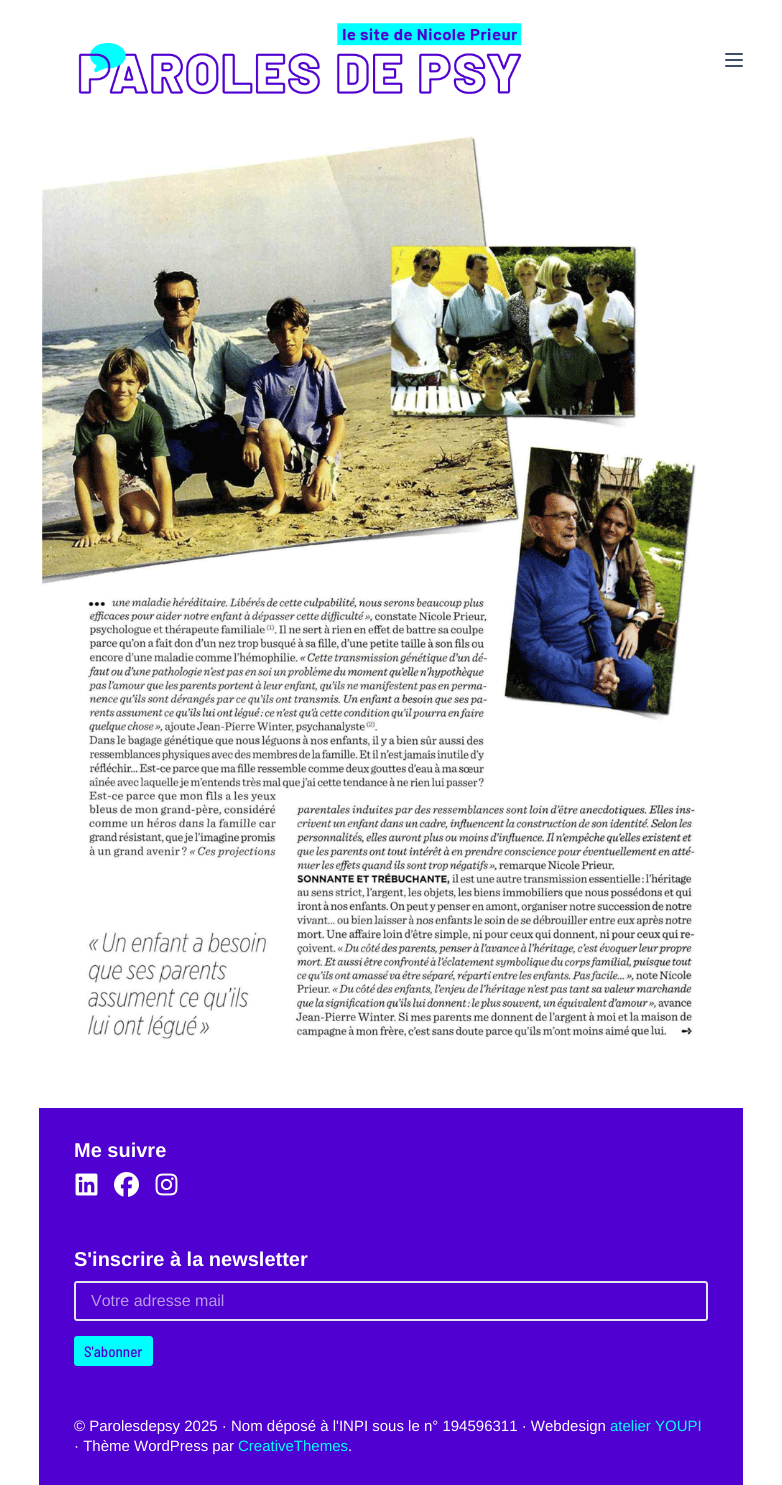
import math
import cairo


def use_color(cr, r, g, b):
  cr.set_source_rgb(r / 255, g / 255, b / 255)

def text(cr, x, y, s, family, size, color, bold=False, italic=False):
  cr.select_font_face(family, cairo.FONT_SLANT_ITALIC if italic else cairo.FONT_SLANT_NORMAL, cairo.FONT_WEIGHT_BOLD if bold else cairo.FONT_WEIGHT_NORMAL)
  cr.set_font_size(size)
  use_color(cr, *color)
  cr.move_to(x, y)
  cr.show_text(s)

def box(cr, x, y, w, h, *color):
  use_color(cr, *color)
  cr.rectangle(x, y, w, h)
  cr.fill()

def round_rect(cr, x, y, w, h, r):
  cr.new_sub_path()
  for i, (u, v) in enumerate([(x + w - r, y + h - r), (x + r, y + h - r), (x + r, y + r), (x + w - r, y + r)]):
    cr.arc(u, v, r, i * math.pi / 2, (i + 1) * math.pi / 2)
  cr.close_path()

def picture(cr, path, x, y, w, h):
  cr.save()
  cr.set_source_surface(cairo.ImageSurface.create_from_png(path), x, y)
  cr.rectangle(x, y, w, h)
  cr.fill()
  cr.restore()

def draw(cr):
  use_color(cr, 255, 255, 255)
  cr.paint()
  picture(cr, "img_01.png", 78, 23, 444, 72)
  use_color(cr, 58, 79, 102)
  round_rect(cr, 725, 53, 18, 2, 1)
  cr.fill()
  round_rect(cr, 725, 59, 18, 2, 1)
  cr.fill()
  round_rect(cr, 725, 65, 18, 2, 1)
  cr.fill()
  picture(cr, "img_02.png", 41, 136, 656, 904)
  box(cr, 39, 1108, 704, 377, 80, 0, 208)
  picture(cr, "img_03.png", 75, 1173, 23, 23)
  picture(cr, "img_04.png", 114, 1172, 25, 25)
  picture(cr, "img_05.png", 155, 1173, 23, 23)
  round_rect(cr, 75, 1282, 632, 38, 2)
  use_color(cr, 225, 232, 237)
  cr.stroke()
  use_color(cr, 0, 255, 255)
  round_rect(cr, 74, 1336, 79, 30, 3)
  cr.fill()
  text(cr, 74, 1157, "Me suivre", "Liberation Sans", 20, (255, 255, 255), bold=True)
  text(cr, 74, 1266, "S'inscrire à la newsletter", "Liberation Sans", 20, (255, 255, 255), bold=True)
  text(cr, 91, 1306, "Votre adresse mail", "Liberation Sans", 16, (185, 153, 236))
  text(cr, 84, 1357, "S'abonner", "Barlow Semi Condensed Medium", 15, (80, 0, 208))
  text(cr, 74, 1431, "© Parolesdepsy 2025 · Nom déposé à l'INPI sous le n° 194596311 · Webdesign", "Liberation Sans", 15, (255, 255, 255))
  text(cr, 610, 1431, "atelier YOUPI", "Liberation Sans", 15, (0, 255, 255))
  text(cr, 74, 1451, "· Thème WordPress par", "Liberation Sans", 15, (255, 255, 255))
  text(cr, 238, 1451, "CreativeThemes", "Liberation Sans", 15, (0, 255, 255))
  text(cr, 348, 1451, ".", "Liberation Sans", 15, (255, 255, 255))


surface = cairo.ImageSurface(cairo.FORMAT_RGB24, 782, 1485)
cr = cairo.Context(surface)
options = cairo.FontOptions()
options.set_hint_metrics(cairo.HINT_METRICS_OFF)
options.set_hint_style(cairo.HINT_STYLE_NONE)
cr.set_font_options(options)
cr.set_miter_limit(4)
draw(cr)
surface.write_to_png("out.png")
